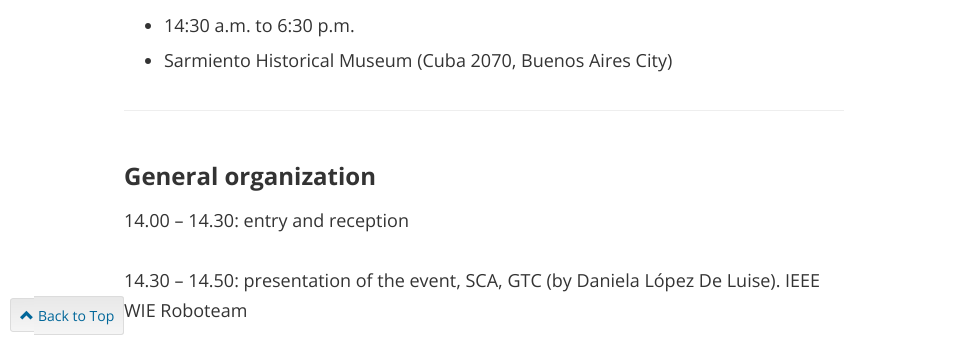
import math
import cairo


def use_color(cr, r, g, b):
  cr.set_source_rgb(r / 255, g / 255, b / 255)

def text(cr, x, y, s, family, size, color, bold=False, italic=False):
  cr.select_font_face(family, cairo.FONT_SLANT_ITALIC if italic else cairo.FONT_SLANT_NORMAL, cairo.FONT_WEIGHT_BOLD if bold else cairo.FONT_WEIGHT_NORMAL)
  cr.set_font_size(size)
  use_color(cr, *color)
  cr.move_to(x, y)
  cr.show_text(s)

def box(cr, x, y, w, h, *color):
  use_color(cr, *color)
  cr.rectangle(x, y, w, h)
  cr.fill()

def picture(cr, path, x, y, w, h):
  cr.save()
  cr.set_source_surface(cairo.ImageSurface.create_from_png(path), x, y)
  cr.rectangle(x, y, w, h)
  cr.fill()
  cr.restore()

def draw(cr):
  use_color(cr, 255, 255, 255)
  cr.paint()
  cr.save()
  cr.new_path()
  cr.move_to(13, 298)
  cr.line_to(34, 298)
  cr.line_to(34, 332)
  cr.line_to(13, 332)
  cr.curve_to(11.5, 332, 10, 330.5, 10, 329)
  cr.line_to(10, 301)
  cr.curve_to(10, 299.5, 11.5, 298, 13, 298)
  cr.close_path()
  cr.clip()
  gradient = cairo.LinearGradient(22, 299, 23, 331)
  gradient.add_color_stop_rgba(0, 0.91, 0.91, 0.91, 1)
  gradient.add_color_stop_rgba(1, 0.961, 0.961, 0.961, 1)
  cr.set_source(gradient)
  cr.rectangle(10, 299, 24, 32)
  cr.fill()
  cr.restore()
  use_color(cr, 220, 220, 220)
  cr.set_fill_rule(cairo.FILL_RULE_EVEN_ODD)
  cr.new_path()
  cr.move_to(13, 298)
  cr.line_to(34, 298)
  cr.line_to(34, 332)
  cr.line_to(13, 332)
  cr.curve_to(11.5, 332, 10, 330.5, 10, 329)
  cr.line_to(10, 301)
  cr.curve_to(10, 299.5, 11.5, 298, 13, 298)
  cr.close_path()
  cr.move_to(13, 299)
  cr.line_to(34, 299)
  cr.line_to(34, 331)
  cr.line_to(13, 331)
  cr.curve_to(12, 331, 11, 330, 11, 329)
  cr.line_to(11, 301)
  cr.curve_to(11, 300, 12, 299, 13, 299)
  cr.close_path()
  cr.fill()
  picture(cr, "img_01.png", 20, 310, 13, 10)
  use_color(cr, 51, 51, 51)
  cr.arc(148, 26, 3, 0, 2 * math.pi)
  cr.fill()
  cr.arc(148, 61, 3, 0, 2 * math.pi)
  cr.fill()
  box(cr, 124, 110, 720, 1, 238, 238, 238)
  text(cr, 164, 32, "14:30 a.m. to 6:30 p.m.", "Open Sans", 18, (51, 51, 51))
  text(cr, 164, 67, "Sarmiento Historical Museum (Cuba 2070, Buenos Aires City)", "Open Sans", 18, (51, 51, 51))
  text(cr, 124, 185, "General organization", "Open Sans", 24, (51, 51, 51), bold=True)
  text(cr, 124, 227, "14.00 – 14.30: entry and reception", "Open Sans", 18, (51, 51, 51))
  text(cr, 124, 287, "14.30 – 14.50: presentation of the event, SCA, GTC (by Daniela López De Luise). IEEE", "Open Sans", 18, (51, 51, 51))
  text(cr, 124, 317, "WIE Roboteam", "Open Sans", 18, (51, 51, 51))
  cr.save()
  cr.set_fill_rule(cairo.FILL_RULE_WINDING)
  cr.new_path()
  cr.move_to(34, 296)
  cr.line_to(121, 296)
  cr.curve_to(122.5, 296, 124, 297.5, 124, 299)
  cr.line_to(124, 332)
  cr.curve_to(124, 333.5, 122.5, 335, 121, 335)
  cr.line_to(34, 335)
  cr.close_path()
  cr.clip()
  gradient = cairo.LinearGradient(79, 297, 79, 334)
  gradient.add_color_stop_rgba(0, 0.91, 0.91, 0.91, 1)
  gradient.add_color_stop_rgba(1, 0.961, 0.961, 0.961, 1)
  cr.set_source(gradient)
  cr.rectangle(34, 297, 90, 37)
  cr.fill()
  cr.restore()
  use_color(cr, 220, 220, 220)
  cr.new_path()
  cr.move_to(34, 296)
  cr.line_to(121, 296)
  cr.curve_to(123, 296, 124, 297, 124, 299)
  cr.line_to(124, 332)
  cr.curve_to(124, 334, 123, 335, 121, 335)
  cr.line_to(34, 335)
  cr.close_path()
  cr.move_to(34, 297)
  cr.line_to(121, 297)
  cr.curve_to(122, 297, 123, 298, 123, 299)
  cr.line_to(123, 332)
  cr.curve_to(123, 333, 122, 334, 121, 334)
  cr.line_to(34, 334)
  cr.close_path()
  cr.fill()
  text(cr, 38, 321, "Back to Top", "Open Sans", 14, (0, 102, 153))


surface = cairo.ImageSurface(cairo.FORMAT_RGB24, 967, 356)
cr = cairo.Context(surface)
options = cairo.FontOptions()
options.set_hint_metrics(cairo.HINT_METRICS_OFF)
options.set_hint_style(cairo.HINT_STYLE_NONE)
cr.set_font_options(options)
cr.set_miter_limit(4)
draw(cr)
surface.write_to_png("out.png")
